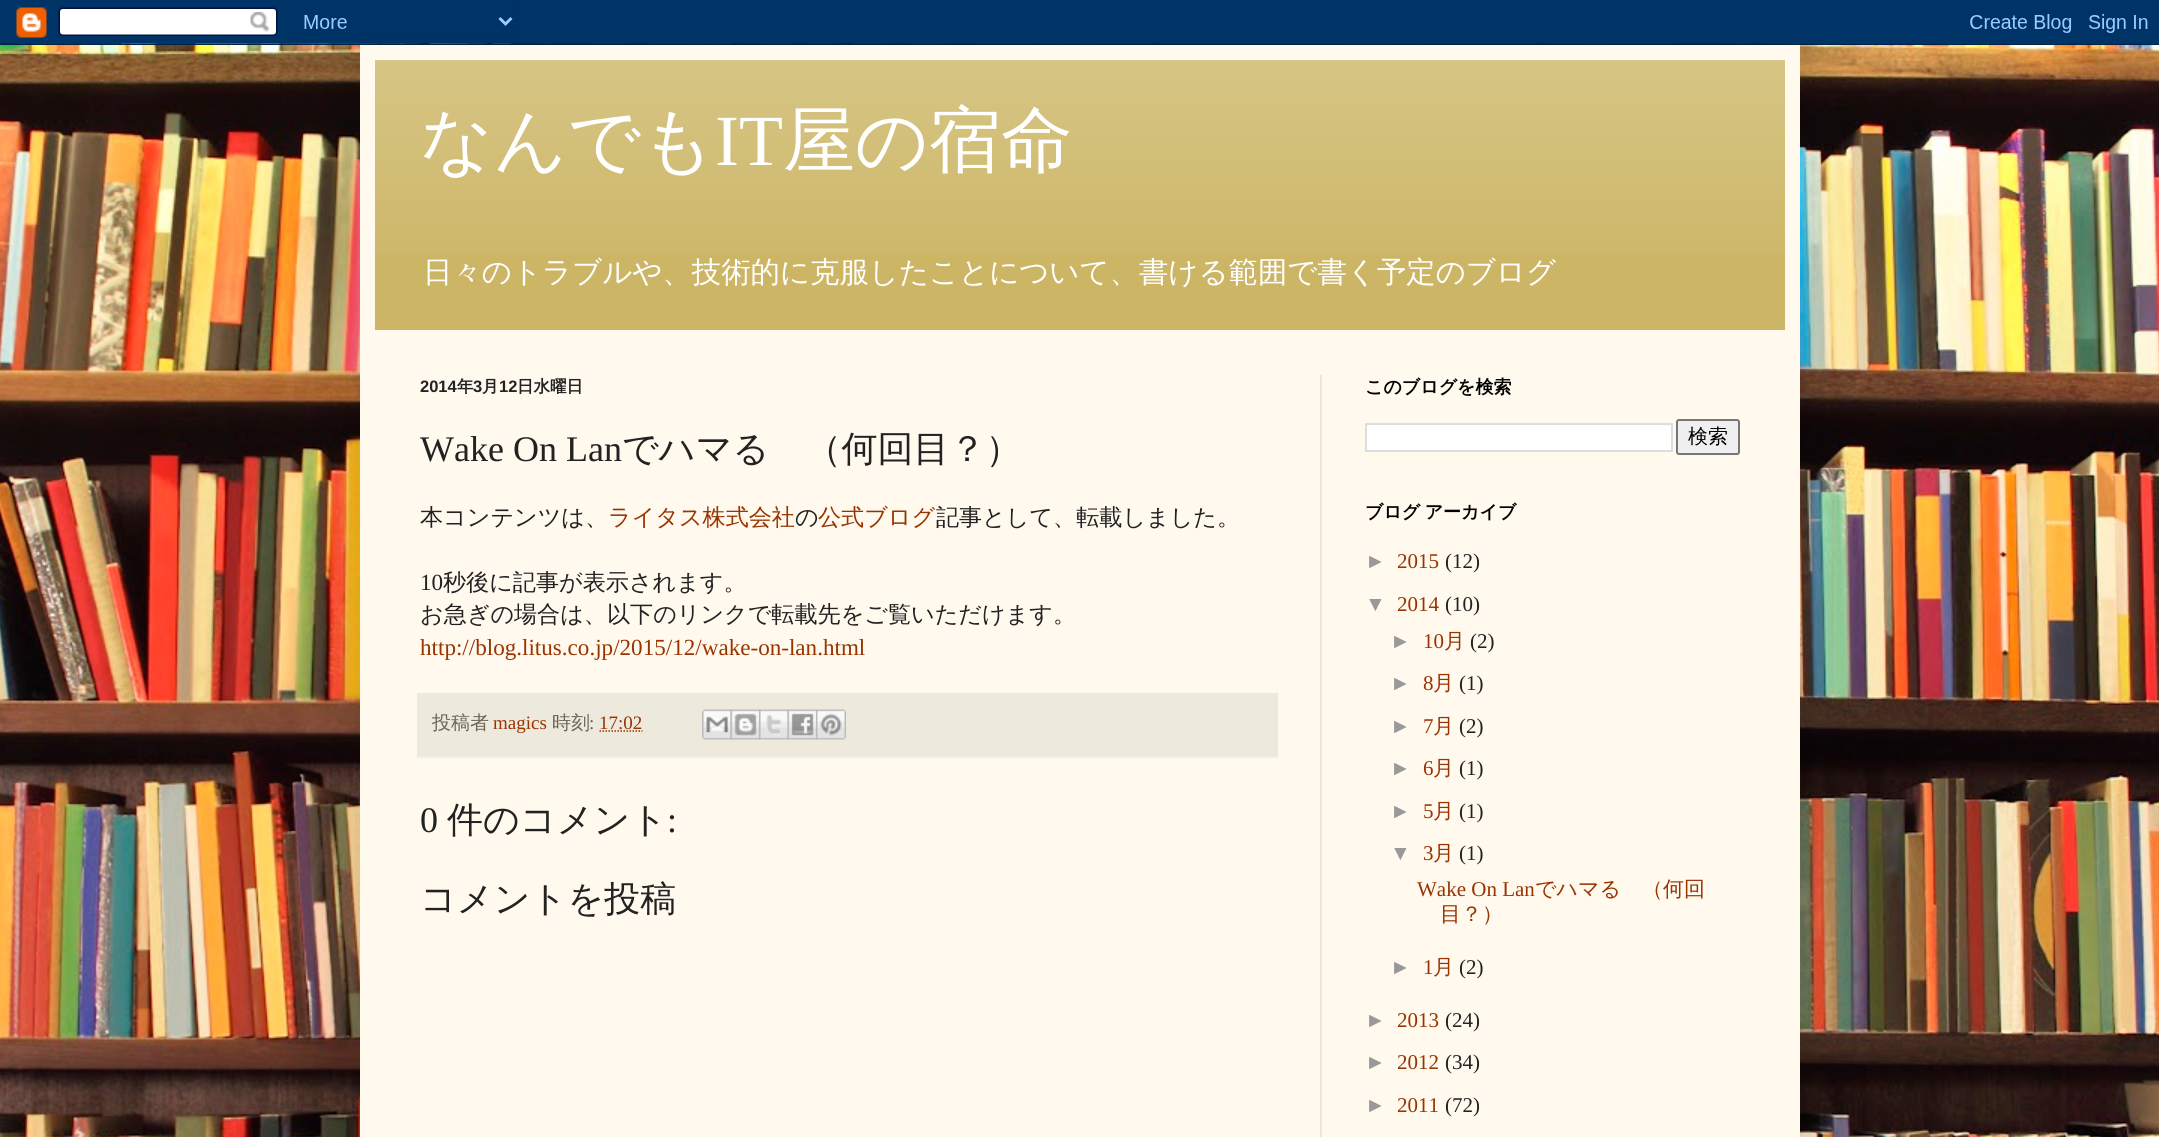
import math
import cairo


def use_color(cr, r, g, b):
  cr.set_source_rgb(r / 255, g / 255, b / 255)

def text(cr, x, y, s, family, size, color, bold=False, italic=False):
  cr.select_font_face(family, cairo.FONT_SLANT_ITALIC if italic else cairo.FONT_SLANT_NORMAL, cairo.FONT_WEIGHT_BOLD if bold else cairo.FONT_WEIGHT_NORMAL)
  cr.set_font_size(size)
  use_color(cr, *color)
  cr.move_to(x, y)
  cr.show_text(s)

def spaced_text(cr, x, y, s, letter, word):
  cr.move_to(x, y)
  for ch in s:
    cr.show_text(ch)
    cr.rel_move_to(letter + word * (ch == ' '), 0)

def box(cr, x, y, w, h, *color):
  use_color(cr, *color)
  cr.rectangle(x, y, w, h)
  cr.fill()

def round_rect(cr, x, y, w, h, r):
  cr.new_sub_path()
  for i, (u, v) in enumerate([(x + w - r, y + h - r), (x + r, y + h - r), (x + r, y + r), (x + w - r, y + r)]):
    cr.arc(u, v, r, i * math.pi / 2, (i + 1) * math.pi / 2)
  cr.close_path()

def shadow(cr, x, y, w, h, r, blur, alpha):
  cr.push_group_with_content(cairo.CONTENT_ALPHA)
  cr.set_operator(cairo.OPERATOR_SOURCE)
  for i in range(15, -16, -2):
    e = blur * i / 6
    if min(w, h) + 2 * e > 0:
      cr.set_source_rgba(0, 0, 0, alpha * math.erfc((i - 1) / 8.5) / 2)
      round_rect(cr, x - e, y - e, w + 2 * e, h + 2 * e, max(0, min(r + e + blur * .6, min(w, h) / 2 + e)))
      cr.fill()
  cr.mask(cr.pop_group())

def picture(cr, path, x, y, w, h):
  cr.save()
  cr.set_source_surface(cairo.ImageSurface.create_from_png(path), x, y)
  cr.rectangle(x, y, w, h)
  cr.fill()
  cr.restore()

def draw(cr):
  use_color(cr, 255, 255, 255)
  cr.paint()
  picture(cr, "img_01.png", 0, 43, 2159, 1094)
  use_color(cr, 0, 0, 0)
  shadow(cr, 360, 45, 1440, 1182, 0, 30, 0.15)
  picture(cr, "img_02.png", 0, 0, 2159, 45)
  box(cr, 360, 45, 1440, 1092, 255, 249, 238)
  box(cr, 375, 60, 1410, 270, 204, 182, 102)
  picture(cr, "img_03.png", 375, 60, 1410, 195)
  box(cr, 1320, 375, 2, 762, 238, 229, 221)
  box(cr, 417, 693, 861, 63, 238, 233, 221)
  box(cr, 417, 756, 861, 2, 238, 238, 238)
  cr.new_path()
  cr.move_to(599.5, 731)
  cr.line_to(642.5, 731)
  use_color(cr, 153, 51, 0)
  cr.set_line_width(1.5)
  cr.set_dash([1.5, 1.5])
  cr.stroke()
  picture(cr, "img_04.png", 702, 709, 30, 31)
  picture(cr, "img_05.png", 730, 709, 31, 31)
  picture(cr, "img_06.png", 759, 709, 30, 31)
  picture(cr, "img_07.png", 787, 709, 31, 31)
  picture(cr, "img_08.png", 816, 709, 30, 31)
  use_color(cr, 255, 255, 255)
  cr.rectangle(1366, 424, 306, 27)
  cr.fill_preserve()
  use_color(cr, 221, 221, 221)
  cr.set_line_width(2)
  cr.set_dash([])
  cr.stroke()
  use_color(cr, 239, 239, 239)
  round_rect(cr, 1677, 420, 62, 34, 2)
  cr.fill_preserve()
  use_color(cr, 118, 118, 118)
  cr.stroke()
  text(cr, 420, 165, "なんでも", "WenQuanYi Zen Hei Medium", 72, (255, 255, 255))
  text(cr, 715, 165, "IT", "Liberation Serif", 72, (255, 255, 255))
  text(cr, 783, 165, "屋の宿命", "WenQuanYi Zen Hei Medium", 72, (255, 255, 255))
  text(cr, 423, 282, "日々のトラブルや、技術的に克服したことについて、書ける範囲で書く予定のブログ", "WenQuanYi Zen Hei Medium", 29.4, (255, 255, 255))
  text(cr, 420, 392, "2014", "Liberation Sans", 16.5, (34, 34, 34), bold=True)
  text(cr, 457, 392, "年", "WenQuanYi Zen Hei", 16.5, (34, 34, 34), bold=True)
  text(cr, 473, 392, "3", "Liberation Sans", 16.5, (34, 34, 34), bold=True)
  text(cr, 482, 392, "月", "WenQuanYi Zen Hei", 16.5, (34, 34, 34), bold=True)
  text(cr, 499, 392, "12", "Liberation Sans", 16.5, (34, 34, 34), bold=True)
  text(cr, 517, 392, "日水曜日", "WenQuanYi Zen Hei", 16.5, (34, 34, 34), bold=True)
  text(cr, 420, 461, "Wake On Lan", "Liberation Serif", 36, (34, 34, 34))
  text(cr, 622, 461, "でハマる　（何回目？）", "WenQuanYi Zen Hei Medium", 36, (34, 34, 34))
  text(cr, 420, 525, "本コンテンツは、", "WenQuanYi Zen Hei Medium", 23.1, (34, 34, 34))
  text(cr, 608, 525, "ライタス株式会社", "WenQuanYi Zen Hei Medium", 23.1, (153, 51, 0))
  text(cr, 795, 525, "の", "WenQuanYi Zen Hei Medium", 23.1, (34, 34, 34))
  text(cr, 818, 525, "公式ブログ", "WenQuanYi Zen Hei Medium", 23.1, (153, 51, 0))
  text(cr, 936, 525, "記事として、転載しました。", "WenQuanYi Zen Hei Medium", 23.1, (34, 34, 34))
  text(cr, 420, 590, "10", "Liberation Serif", 23.1, (34, 34, 34))
  text(cr, 443, 590, "秒後に記事が表示されます。", "WenQuanYi Zen Hei Medium", 23.1, (34, 34, 34))
  text(cr, 420, 622, "お急ぎの場合は、以下のリンクで転載先をご覧いただけます。", "WenQuanYi Zen Hei Medium", 23.1, (34, 34, 34))
  text(cr, 420, 655, "http://blog.litus.co.jp/2015/12/wake-on-lan.html", "Liberation Serif", 23.1, (153, 51, 0))
  text(cr, 432, 729, "投稿者", "WenQuanYi Zen Hei Medium", 19, (102, 101, 85))
  text(cr, 493, 729, "magics", "Liberation Serif", 19, (153, 51, 0))
  text(cr, 552, 729, "時刻", "WenQuanYi Zen Hei Medium", 19, (102, 101, 85))
  text(cr, 589, 729, ":", "Liberation Serif", 19, (102, 101, 85))
  text(cr, 599, 729, "17:02", "Liberation Serif", 19, (153, 51, 0))
  text(cr, 420, 832, "0", "Liberation Serif", 36, (34, 34, 34))
  text(cr, 447, 832, "件のコメント", "WenQuanYi Zen Hei Medium", 36, (34, 34, 34))
  text(cr, 667, 832, ":", "Liberation Serif", 36, (34, 34, 34))
  text(cr, 420, 911, "コメントを投稿", "WenQuanYi Zen Hei Medium", 36, (34, 34, 34))
  text(cr, 1365, 393, "このブログを検索", "WenQuanYi Zen Hei", 18, (0, 0, 0), bold=True)
  text(cr, 1688, 443, "検索", "WenQuanYi Zen Hei Medium", 20, (0, 0, 0))
  cr.select_font_face("WenQuanYi Zen Hei", cairo.FONT_SLANT_NORMAL, cairo.FONT_WEIGHT_BOLD)
  cr.set_font_size(18)
  spaced_text(cr, 1365, 518, "ブログ アーカイブ", 0, -1)
  text(cr, 1365, 568, "►", "Liberation Sans", 21, (153, 153, 153))
  text(cr, 1397, 568, "2015", "Liberation Serif", 21, (153, 51, 0))
  text(cr, 1445, 568, "(12)", "Liberation Serif", 21, (34, 34, 34))
  text(cr, 1365, 611, "▼", "Liberation Sans", 21, (153, 153, 153))
  text(cr, 1397, 611, "2014", "Liberation Serif", 21, (153, 51, 0))
  text(cr, 1445, 611, "(10)", "Liberation Serif", 21, (34, 34, 34))
  text(cr, 1390, 648, "►", "Liberation Sans", 21, (153, 153, 153))
  text(cr, 1423, 648, "10", "Liberation Serif", 21, (153, 51, 0))
  text(cr, 1444, 648, "月", "WenQuanYi Zen Hei Medium", 21, (153, 51, 0))
  text(cr, 1470, 648, "(2)", "Liberation Serif", 21, (34, 34, 34))
  text(cr, 1390, 690, "►", "Liberation Sans", 21, (153, 153, 153))
  text(cr, 1423, 690, "8", "Liberation Serif", 21, (153, 51, 0))
  text(cr, 1433, 690, "月", "WenQuanYi Zen Hei Medium", 21, (153, 51, 0))
  text(cr, 1459, 690, "(1)", "Liberation Serif", 21, (34, 34, 34))
  text(cr, 1390, 733, "►", "Liberation Sans", 21, (153, 153, 153))
  text(cr, 1423, 733, "7", "Liberation Serif", 21, (153, 51, 0))
  text(cr, 1433, 733, "月", "WenQuanYi Zen Hei Medium", 21, (153, 51, 0))
  text(cr, 1459, 733, "(2)", "Liberation Serif", 21, (34, 34, 34))
  text(cr, 1390, 775, "►", "Liberation Sans", 21, (153, 153, 153))
  text(cr, 1423, 775, "6", "Liberation Serif", 21, (153, 51, 0))
  text(cr, 1433, 775, "月", "WenQuanYi Zen Hei Medium", 21, (153, 51, 0))
  text(cr, 1459, 775, "(1)", "Liberation Serif", 21, (34, 34, 34))
  text(cr, 1390, 818, "►", "Liberation Sans", 21, (153, 153, 153))
  text(cr, 1423, 818, "5", "Liberation Serif", 21, (153, 51, 0))
  text(cr, 1433, 818, "月", "WenQuanYi Zen Hei Medium", 21, (153, 51, 0))
  text(cr, 1459, 818, "(1)", "Liberation Serif", 21, (34, 34, 34))
  text(cr, 1390, 860, "▼", "Liberation Sans", 21, (153, 153, 153))
  text(cr, 1423, 860, "3", "Liberation Serif", 21, (153, 51, 0))
  text(cr, 1433, 860, "月", "WenQuanYi Zen Hei Medium", 21, (153, 51, 0))
  text(cr, 1459, 860, "(1)", "Liberation Serif", 21, (34, 34, 34))
  text(cr, 1417, 896, "Wake On Lan", "Liberation Serif", 21, (153, 51, 0))
  text(cr, 1535, 896, "でハマる　（何回", "WenQuanYi Zen Hei Medium", 21, (153, 51, 0))
  text(cr, 1440, 921, "目？）", "WenQuanYi Zen Hei Medium", 21, (153, 51, 0))
  text(cr, 1390, 974, "►", "Liberation Sans", 21, (153, 153, 153))
  text(cr, 1423, 974, "1", "Liberation Serif", 21, (153, 51, 0))
  text(cr, 1433, 974, "月", "WenQuanYi Zen Hei Medium", 21, (153, 51, 0))
  text(cr, 1459, 974, "(2)", "Liberation Serif", 21, (34, 34, 34))
  text(cr, 1365, 1027, "►", "Liberation Sans", 21, (153, 153, 153))
  text(cr, 1397, 1027, "2013", "Liberation Serif", 21, (153, 51, 0))
  text(cr, 1445, 1027, "(24)", "Liberation Serif", 21, (34, 34, 34))
  text(cr, 1365, 1069, "►", "Liberation Sans", 21, (153, 153, 153))
  text(cr, 1397, 1069, "2012", "Liberation Serif", 21, (153, 51, 0))
  text(cr, 1445, 1069, "(34)", "Liberation Serif", 21, (34, 34, 34))
  text(cr, 1365, 1112, "►", "Liberation Sans", 21, (153, 153, 153))
  text(cr, 1397, 1112, "2011", "Liberation Serif", 21, (153, 51, 0))
  text(cr, 1445, 1112, "(72)", "Liberation Serif", 21, (34, 34, 34))


surface = cairo.ImageSurface(cairo.FORMAT_RGB24, 2159, 1137)
cr = cairo.Context(surface)
options = cairo.FontOptions()
options.set_hint_metrics(cairo.HINT_METRICS_OFF)
options.set_hint_style(cairo.HINT_STYLE_NONE)
cr.set_font_options(options)
cr.set_miter_limit(4)
draw(cr)
surface.write_to_png("out.png")
